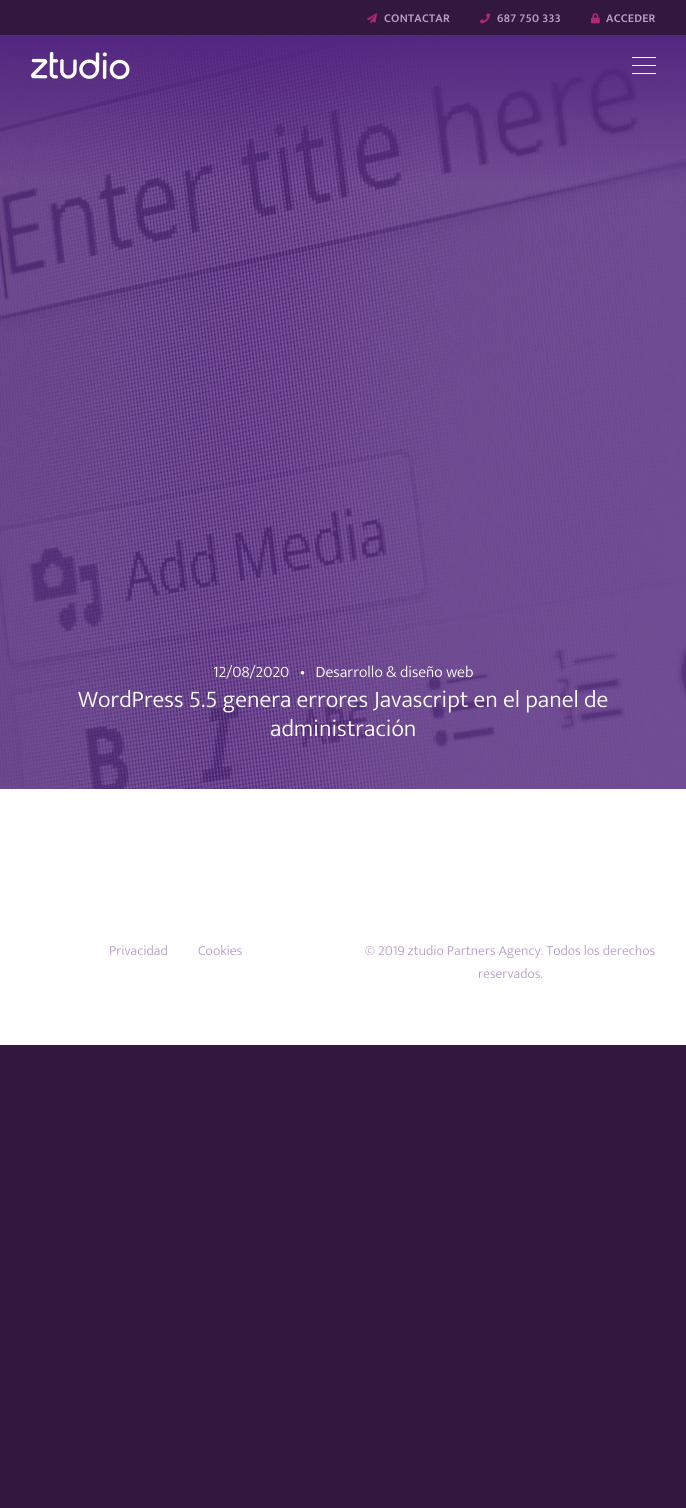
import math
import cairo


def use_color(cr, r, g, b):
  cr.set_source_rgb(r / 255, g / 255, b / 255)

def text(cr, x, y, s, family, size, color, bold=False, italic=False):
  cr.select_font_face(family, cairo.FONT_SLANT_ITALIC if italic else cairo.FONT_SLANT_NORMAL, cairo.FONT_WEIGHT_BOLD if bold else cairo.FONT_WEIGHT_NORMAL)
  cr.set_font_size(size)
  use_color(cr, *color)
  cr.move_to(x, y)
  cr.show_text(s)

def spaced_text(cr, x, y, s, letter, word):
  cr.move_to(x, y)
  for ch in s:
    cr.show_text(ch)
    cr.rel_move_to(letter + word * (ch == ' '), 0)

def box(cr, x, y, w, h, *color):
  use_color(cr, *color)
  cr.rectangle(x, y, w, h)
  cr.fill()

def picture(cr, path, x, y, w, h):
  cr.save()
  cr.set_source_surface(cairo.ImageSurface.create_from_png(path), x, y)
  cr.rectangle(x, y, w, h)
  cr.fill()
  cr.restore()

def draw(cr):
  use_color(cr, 50, 24, 62)
  cr.paint()
  picture(cr, "img_01.png", 367, 13, 10, 11)
  picture(cr, "img_02.png", 480, 13, 10, 11)
  picture(cr, "img_03.png", 591, 13, 9, 11)
  picture(cr, "img_05.png", 0, 35, 686, 754)
  picture(cr, "img_04.png", 30, 51, 100, 29)
  box(cr, 632, 65, 24, 1, 255, 255, 255)
  box(cr, 632, 57, 24, 1, 255, 255, 255)
  box(cr, 632, 73, 24, 1, 255, 255, 255)
  box(cr, 0, 789, 686, 256, 255, 255, 255)
  cr.select_font_face("Mukta SemiBold")
  cr.set_font_size(12)
  use_color(cr, 182, 159, 201)
  spaced_text(cr, 384, 22, "CONTACTAR", 0.25, 0)
  spaced_text(cr, 497, 22, "687 750 333", 0.25, 0)
  spaced_text(cr, 606, 22, "ACCEDER", 0.25, 0)
  text(cr, 213, 677, "12/08/2020   •   Desarrollo & diseño web", "Mukta Light", 16, (255, 255, 255))
  text(cr, 78, 707, "WordPress 5.5 genera errores Javascript en el panel de", "Mukta Light", 24, (255, 255, 255))
  text(cr, 270, 736, "administración", "Mukta Light", 24, (255, 255, 255))
  text(cr, 109, 955, "Privacidad", "Mukta Light", 14, (182, 159, 201))
  text(cr, 198, 955, "Cookies", "Mukta Light", 14, (182, 159, 201))
  text(cr, 365, 955, "© 2019 ztudio Partners Agency. Todos los derechos", "Mukta Light", 14, (182, 159, 201))
  text(cr, 478, 978, "reservados.", "Mukta Light", 14, (182, 159, 201))


surface = cairo.ImageSurface(cairo.FORMAT_RGB24, 686, 1508)
cr = cairo.Context(surface)
options = cairo.FontOptions()
options.set_hint_metrics(cairo.HINT_METRICS_OFF)
options.set_hint_style(cairo.HINT_STYLE_NONE)
cr.set_font_options(options)
cr.set_miter_limit(4)
draw(cr)
surface.write_to_png("out.png")
